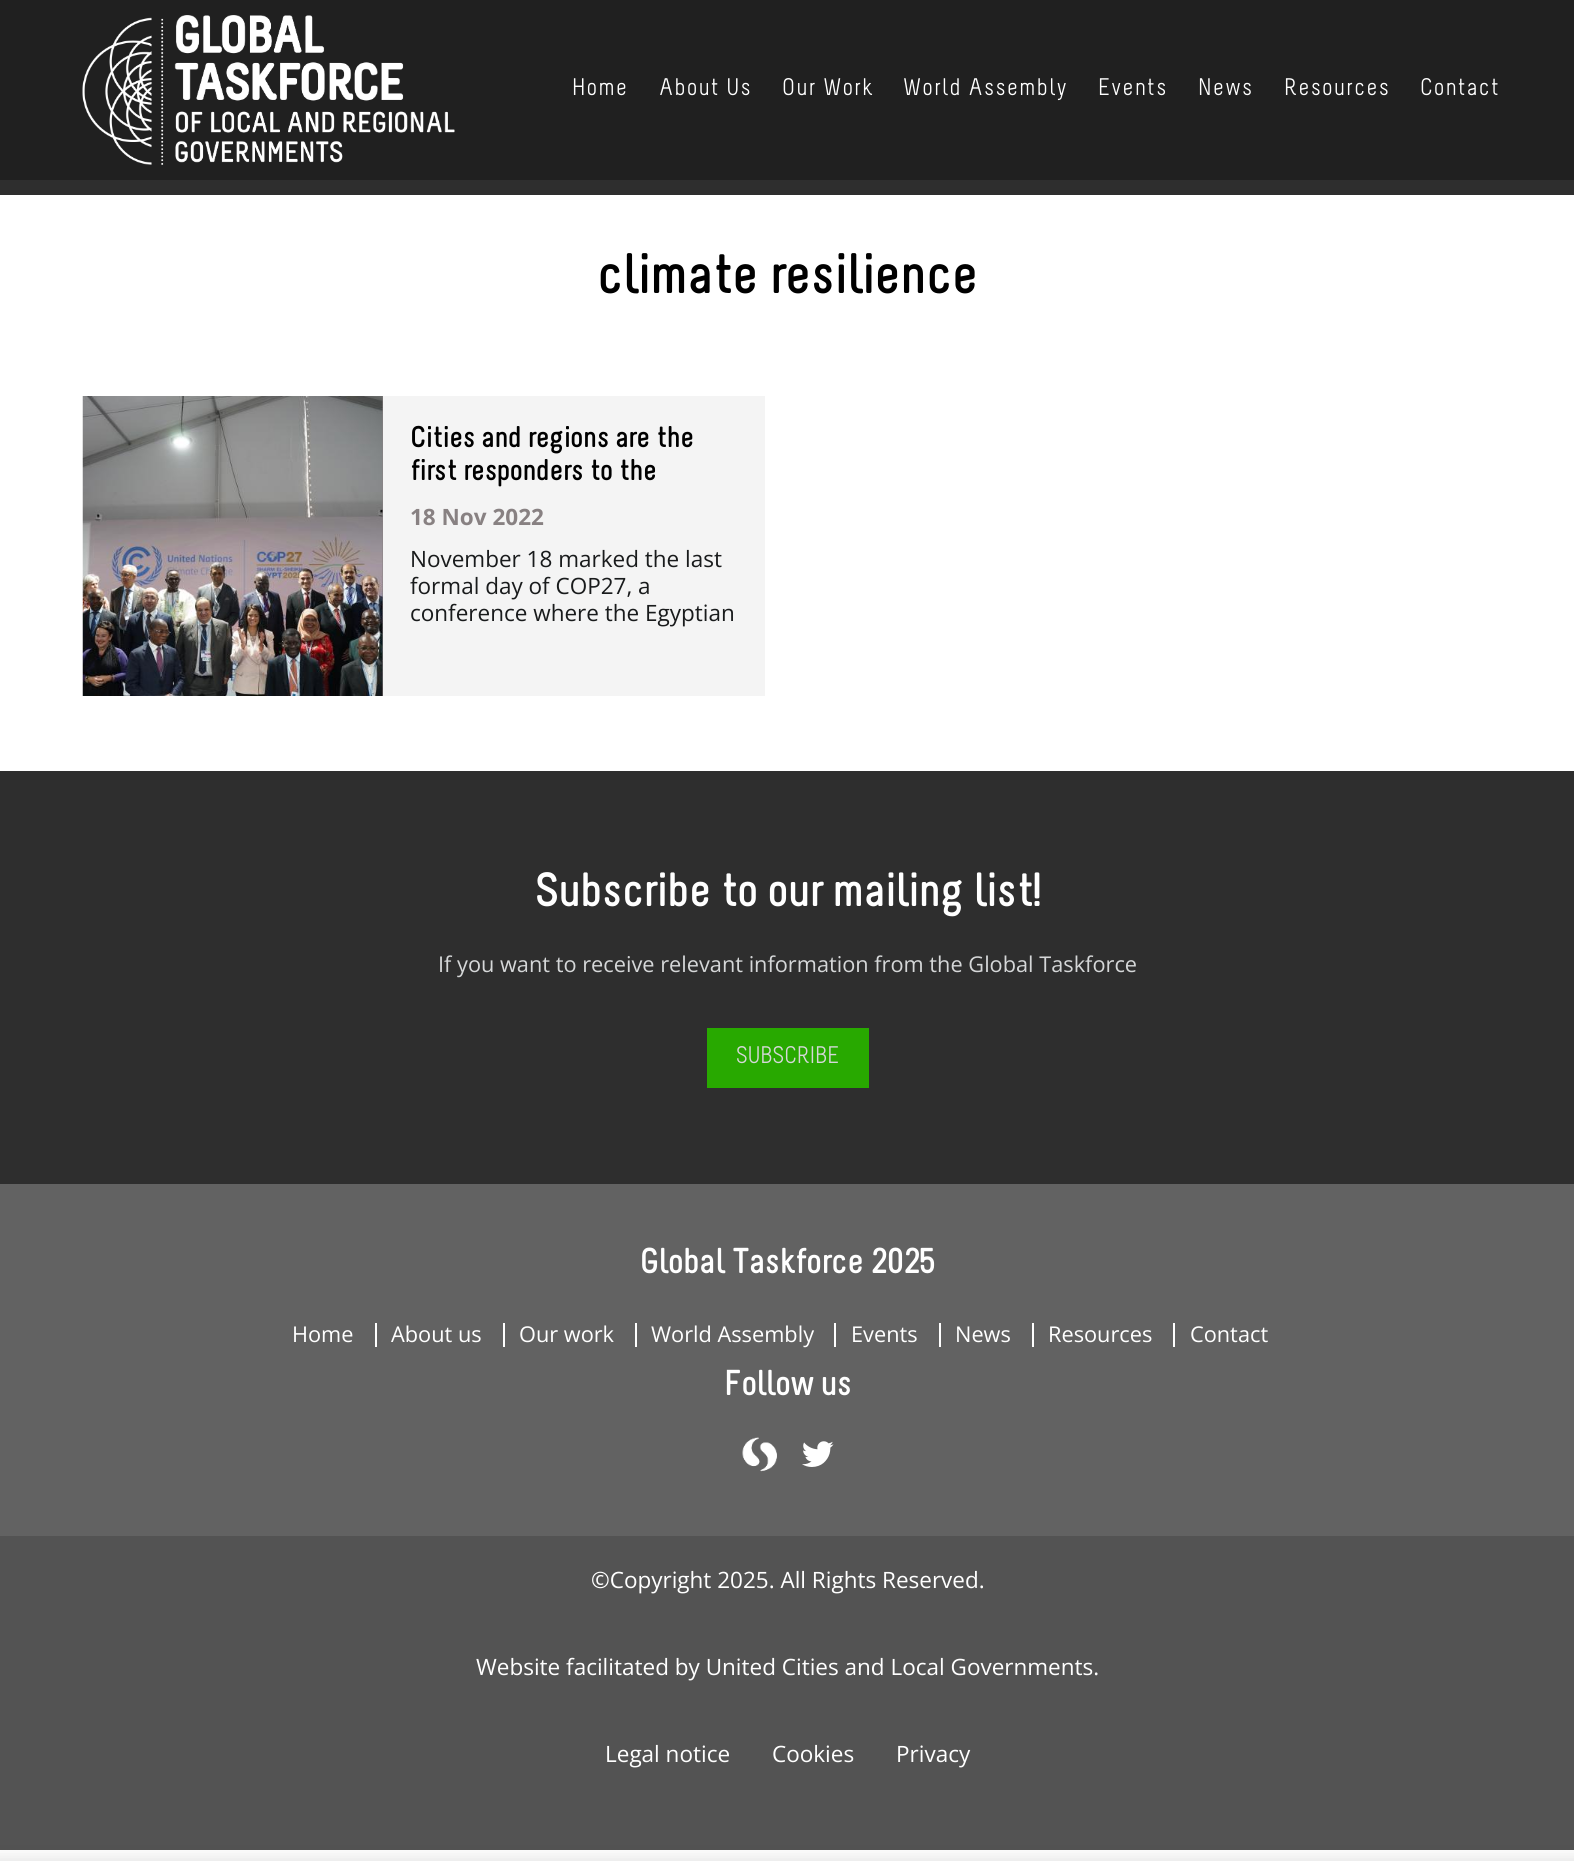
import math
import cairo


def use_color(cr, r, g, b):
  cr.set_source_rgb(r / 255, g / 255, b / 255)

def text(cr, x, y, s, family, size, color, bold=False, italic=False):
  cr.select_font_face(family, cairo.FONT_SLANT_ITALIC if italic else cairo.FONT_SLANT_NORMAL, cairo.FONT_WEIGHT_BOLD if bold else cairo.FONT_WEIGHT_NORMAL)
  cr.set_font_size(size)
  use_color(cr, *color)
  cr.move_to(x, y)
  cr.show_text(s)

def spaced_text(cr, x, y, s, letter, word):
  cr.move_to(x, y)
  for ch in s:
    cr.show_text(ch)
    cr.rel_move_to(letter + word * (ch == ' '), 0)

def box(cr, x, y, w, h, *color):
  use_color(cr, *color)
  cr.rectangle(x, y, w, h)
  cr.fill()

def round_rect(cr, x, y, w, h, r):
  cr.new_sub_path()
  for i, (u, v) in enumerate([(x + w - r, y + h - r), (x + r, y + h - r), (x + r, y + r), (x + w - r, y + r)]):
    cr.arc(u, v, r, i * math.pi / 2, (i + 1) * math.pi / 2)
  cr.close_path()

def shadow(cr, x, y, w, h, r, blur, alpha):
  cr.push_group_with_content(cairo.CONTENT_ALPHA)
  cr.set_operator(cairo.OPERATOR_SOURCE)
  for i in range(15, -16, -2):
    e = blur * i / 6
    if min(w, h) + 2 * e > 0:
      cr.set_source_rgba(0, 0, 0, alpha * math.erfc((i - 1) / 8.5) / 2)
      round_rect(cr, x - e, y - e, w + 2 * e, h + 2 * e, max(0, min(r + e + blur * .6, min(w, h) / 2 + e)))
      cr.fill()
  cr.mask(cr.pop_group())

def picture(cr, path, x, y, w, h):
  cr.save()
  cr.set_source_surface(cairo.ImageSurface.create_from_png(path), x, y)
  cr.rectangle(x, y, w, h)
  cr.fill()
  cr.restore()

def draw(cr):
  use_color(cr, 255, 255, 255)
  cr.paint()
  box(cr, 0, 0, 1574, 180, 32, 32, 32)
  picture(cr, "img_01.png", 82, 15, 373, 150)
  box(cr, 383, 396, 382, 300, 244, 244, 244)
  box(cr, 382, 396, 1, 300, 136, 129, 130)
  picture(cr, "img_02.png", 82, 396, 301, 300)
  box(cr, 0, 180, 1574, 15, 46, 46, 46)
  box(cr, 0, 1184, 1574, 352, 98, 98, 98)
  box(cr, 0, 771, 1574, 413, 46, 46, 46)
  box(cr, 707, 1028, 162, 60, 40, 169, 0)
  box(cr, 375, 1323, 2, 24, 255, 255, 255)
  box(cr, 503, 1323, 2, 24, 255, 255, 255)
  box(cr, 635, 1323, 2, 24, 255, 255, 255)
  box(cr, 834, 1323, 2, 24, 255, 255, 255)
  box(cr, 939, 1323, 2, 24, 255, 255, 255)
  box(cr, 1032, 1323, 2, 24, 255, 255, 255)
  box(cr, 1173, 1323, 2, 24, 255, 255, 255)
  picture(cr, "img_03.png", 742, 1437, 35, 35)
  picture(cr, "img_04.png", 802, 1441, 32, 26)
  box(cr, 0, 1536, 1574, 314, 83, 83, 83)
  use_color(cr, 0, 0, 0)
  shadow(cr, -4, 1857, 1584, 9, 0, 7.5, 0.1)
  cr.select_font_face("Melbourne")
  cr.set_font_size(24)
  use_color(cr, 255, 255, 255)
  spaced_text(cr, 572, 95, "Home", 1.5, 0)
  spaced_text(cr, 659, 95, "About Us", 1.5, 0)
  spaced_text(cr, 782, 95, "Our Work", 1.5, 0)
  spaced_text(cr, 903, 95, "World Assembly", 1.5, 0)
  spaced_text(cr, 1098, 95, "Events", 1.5, 0)
  spaced_text(cr, 1198, 95, "News", 1.5, 0)
  spaced_text(cr, 1284, 95, "Resources", 1.5, 0)
  spaced_text(cr, 1420, 95, "Contact", 1.5, 0)
  text(cr, 597, 293, "climate resilience", "Melbourne", 57, (0, 0, 0), bold=True)
  text(cr, 410, 447, "Cities and regions are the", "Melbourne", 30, (0, 0, 0), bold=True)
  text(cr, 410, 480, "first responders to the", "Melbourne", 30, (0, 0, 0), bold=True)
  text(cr, 410, 525, "18 Nov 2022", "Open Sans", 22.5, (136, 129, 130), bold=True)
  text(cr, 410, 567, "November 18 marked the last", "Open Sans", 22.5, (25, 27, 28))
  text(cr, 410, 594, "formal day of COP27, a", "Open Sans", 22.5, (25, 27, 28))
  text(cr, 410, 621, "conference where the Egyptian", "Open Sans", 22.5, (25, 27, 28))
  text(cr, 535, 906, "Subscribe to our mailing list!", "Melbourne", 48, (255, 255, 255), bold=True)
  text(cr, 438, 972, "If you want to receive relevant information from the Global Taskforce", "Open Sans", 21.75, (213, 215, 216))
  text(cr, 736, 1063, "SUBSCRIBE", "Melbourne", 24, (213, 215, 216))
  text(cr, 640, 1273, "Global Taskforce 2025", "Melbourne", 36, (255, 255, 255), bold=True)
  text(cr, 292, 1342, "Home", "Open Sans", 21.75, (255, 255, 255))
  text(cr, 391, 1342, "About us", "Open Sans", 21.75, (255, 255, 255))
  text(cr, 519, 1342, "Our work", "Open Sans", 21.75, (255, 255, 255))
  text(cr, 651, 1342, "World Assembly", "Open Sans", 21.75, (255, 255, 255))
  text(cr, 851, 1342, "Events", "Open Sans", 21.75, (255, 255, 255))
  text(cr, 955, 1342, "News", "Open Sans", 21.75, (255, 255, 255))
  text(cr, 1048, 1342, "Resources", "Open Sans", 21.75, (255, 255, 255))
  text(cr, 1190, 1342, "Contact", "Open Sans", 21.75, (255, 255, 255))
  text(cr, 724, 1395, "Follow us", "Melbourne", 36, (255, 255, 255), bold=True)
  text(cr, 591, 1588, "©Copyright 2025. All Rights Reserved.", "Open Sans", 22.5, (255, 255, 255))
  text(cr, 476, 1675, "Website facilitated by United Cities and Local Governments.", "Open Sans", 22.5, (255, 255, 255))
  text(cr, 605, 1762, "Legal notice", "Open Sans", 22.5, (255, 255, 255))
  text(cr, 772, 1762, "Cookies", "Open Sans", 22.5, (255, 255, 255))
  text(cr, 896, 1762, "Privacy", "Open Sans", 22.5, (255, 255, 255))


surface = cairo.ImageSurface(cairo.FORMAT_RGB24, 1574, 1861)
cr = cairo.Context(surface)
options = cairo.FontOptions()
options.set_hint_metrics(cairo.HINT_METRICS_OFF)
options.set_hint_style(cairo.HINT_STYLE_NONE)
cr.set_font_options(options)
cr.set_miter_limit(4)
draw(cr)
surface.write_to_png("out.png")
